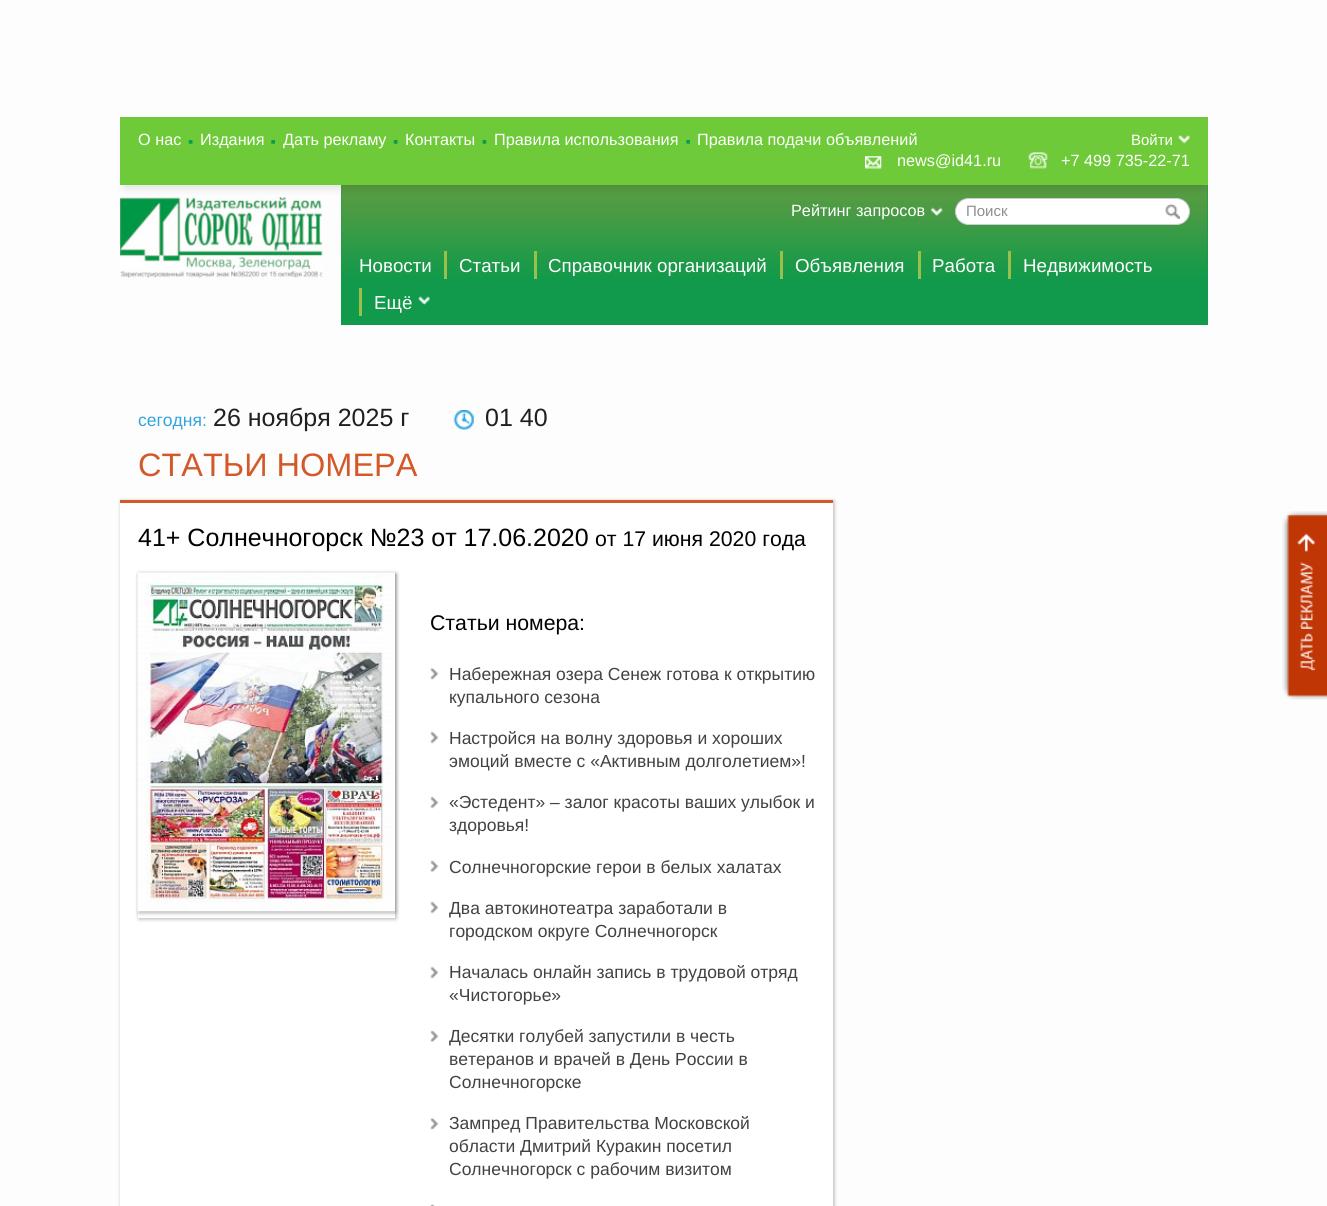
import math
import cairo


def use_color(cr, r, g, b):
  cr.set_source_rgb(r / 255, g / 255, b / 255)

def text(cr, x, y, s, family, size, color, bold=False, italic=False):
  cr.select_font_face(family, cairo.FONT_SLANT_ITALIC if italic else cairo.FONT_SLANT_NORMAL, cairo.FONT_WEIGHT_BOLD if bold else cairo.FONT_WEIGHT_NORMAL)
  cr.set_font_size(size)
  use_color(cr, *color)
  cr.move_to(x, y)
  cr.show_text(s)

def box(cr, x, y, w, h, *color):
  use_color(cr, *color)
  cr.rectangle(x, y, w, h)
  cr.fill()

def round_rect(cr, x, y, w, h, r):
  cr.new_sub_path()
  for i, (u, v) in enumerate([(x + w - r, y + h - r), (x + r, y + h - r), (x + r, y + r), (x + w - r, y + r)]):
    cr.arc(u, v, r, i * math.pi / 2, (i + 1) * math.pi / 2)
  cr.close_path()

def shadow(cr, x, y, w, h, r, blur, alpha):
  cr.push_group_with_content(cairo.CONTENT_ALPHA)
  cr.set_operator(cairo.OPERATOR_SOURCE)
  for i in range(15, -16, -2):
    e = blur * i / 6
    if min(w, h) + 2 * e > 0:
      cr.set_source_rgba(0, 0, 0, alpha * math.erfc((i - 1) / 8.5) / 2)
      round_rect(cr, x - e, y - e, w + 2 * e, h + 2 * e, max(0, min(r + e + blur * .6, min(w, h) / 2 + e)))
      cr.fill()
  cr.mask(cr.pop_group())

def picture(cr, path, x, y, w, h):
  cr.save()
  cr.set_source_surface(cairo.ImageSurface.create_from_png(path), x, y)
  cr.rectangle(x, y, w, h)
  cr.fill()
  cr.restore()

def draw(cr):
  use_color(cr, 253, 253, 253)
  cr.paint()
  box(cr, 341, 185, 867, 140, 17, 154, 75)
  picture(cr, "img_07.png", 341, 185, 867, 91)
  picture(cr, "img_08.png", 120, 197, 203, 81)
  use_color(cr, 255, 255, 255)
  round_rect(cr, 955.5, 198.5, 234, 26, 13)
  cr.fill_preserve()
  use_color(cr, 203, 204, 206)
  cr.set_line_width(1)
  cr.stroke()
  use_color(cr, 0, 0, 0)
  shadow(cr, 124, 128, 1080, 61, 0, 4, 0.1)
  box(cr, 120, 117, 1088, 68, 111, 202, 58)
  picture(cr, "img_01.png", 188, 140, 5, 4)
  picture(cr, "img_02.png", 271, 140, 4, 4)
  picture(cr, "img_01.png", 393, 140, 5, 4)
  picture(cr, "img_03.png", 482, 140, 5, 4)
  picture(cr, "img_02.png", 686, 140, 4, 4)
  picture(cr, "img_04.png", 1178, 135, 12, 9)
  picture(cr, "img_05.png", 865, 156, 17, 13)
  picture(cr, "img_06.png", 1028, 152, 20, 17)
  picture(cr, "img_09.png", 931, 207, 12, 10)
  picture(cr, "img_10.png", 1165, 203, 15, 16)
  box(cr, 444, 251, 3, 28, 153, 192, 76)
  box(cr, 534, 251, 3, 28, 153, 192, 76)
  box(cr, 780, 251, 3, 28, 153, 192, 76)
  box(cr, 918, 251, 3, 28, 153, 192, 76)
  box(cr, 1008, 251, 3, 28, 153, 192, 76)
  box(cr, 359, 288, 3, 28, 153, 192, 76)
  picture(cr, "img_11.png", 418, 296, 12, 9)
  picture(cr, "img_12.png", 453, 410, 21, 20)
  use_color(cr, 0, 0, 0)
  shadow(cr, 121, 501, 713, 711, 0, 2, 0.3)
  box(cr, 120, 503, 713, 703, 255, 255, 255)
  box(cr, 120, 500, 713, 3, 211, 90, 40)
  cr.save()
  cr.set_fill_rule(cairo.FILL_RULE_EVEN_ODD)
  cr.new_path()
  cr.move_to(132, 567)
  cr.line_to(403, 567)
  cr.line_to(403, 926)
  cr.line_to(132, 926)
  cr.close_path()
  cr.move_to(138, 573)
  cr.line_to(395, 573)
  cr.line_to(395, 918)
  cr.line_to(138, 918)
  cr.close_path()
  cr.clip()
  use_color(cr, 0, 0, 0)
  shadow(cr, 139, 574, 257, 345, 0, 2, 0.3)
  cr.restore()
  use_color(cr, 0, 0, 0)
  shadow(cr, 139, 574, 257, 339, 0, 2, 0.3)
  picture(cr, "img_13.png", 137, 572, 258, 340)
  picture(cr, "img_14.png", 430, 667, 9, 13)
  picture(cr, "img_15.png", 430, 731, 9, 13)
  picture(cr, "img_15.png", 430, 796, 9, 13)
  picture(cr, "img_16.png", 430, 860, 9, 13)
  picture(cr, "img_15.png", 430, 901, 9, 13)
  picture(cr, "img_15.png", 430, 966, 9, 13)
  picture(cr, "img_16.png", 430, 1030, 9, 13)
  picture(cr, "img_14.png", 430, 1117, 9, 13)
  picture(cr, "img_17.png", 430, 1204, 5, 2)
  picture(cr, "img_18.png", 1282, 511, 45, 189)
  text(cr, 138, 145, "О нас", "Liberation Sans", 16.25, (255, 255, 255))
  text(cr, 200, 145, "Издания", "Liberation Sans", 16.25, (255, 255, 255))
  text(cr, 283, 145, "Дать рекламу", "Liberation Sans", 16.25, (255, 255, 255))
  text(cr, 405, 145, "Контакты", "Liberation Sans", 16.25, (255, 255, 255))
  text(cr, 494, 145, "Правила использования", "Liberation Sans", 16.25, (255, 255, 255))
  text(cr, 697, 145, "Правила подачи объявлений", "Liberation Sans", 16.25, (255, 255, 255))
  text(cr, 1131, 145, "Войти", "Liberation Sans", 15, (255, 255, 255))
  text(cr, 897, 166, "news@id41.ru", "Liberation Sans", 16.25, (255, 255, 255))
  text(cr, 1061, 166, "+7 499 735-22-71", "Liberation Sans", 16.25, (255, 255, 255))
  text(cr, 791, 216, "Рейтинг запросов", "Liberation Sans", 16.25, (255, 255, 255))
  text(cr, 966, 216, "Поиск", "Liberation Sans", 15, (141, 142, 145))
  text(cr, 359, 272, "Новости", "Liberation Sans", 18.75, (255, 255, 255))
  text(cr, 459, 272, "Статьи", "Liberation Sans", 18.75, (255, 255, 255))
  text(cr, 548, 272, "Справочник организаций", "Liberation Sans", 18.75, (255, 255, 255))
  text(cr, 795, 272, "Объявления", "Liberation Sans", 18.75, (255, 255, 255))
  text(cr, 932, 272, "Работа", "Liberation Sans", 18.75, (255, 255, 255))
  text(cr, 1023, 272, "Недвижимость", "Liberation Sans", 18.75, (255, 255, 255))
  text(cr, 374, 309, "Ещё", "Liberation Sans", 18.75, (255, 255, 255))
  text(cr, 138, 426, "сегодня:", "Liberation Sans", 17.5, (48, 165, 221))
  text(cr, 213, 426, "26 ноября 2025 г", "Liberation Sans", 25, (34, 30, 31))
  text(cr, 485, 426, "01 40", "Liberation Sans", 25, (34, 30, 31))
  text(cr, 138, 476, "СТАТЬИ НОМЕРА", "Liberation Sans", 32.5, (211, 90, 40))
  text(cr, 138, 546, "41+ Солнечногорск №23 от 17.06.2020", "Liberation Sans", 25, (0, 0, 0))
  text(cr, 595, 546, "от 17 июня 2020 года", "Liberation Sans", 21.25, (0, 0, 0))
  text(cr, 430, 630, "Статьи номера:", "Liberation Sans", 21.25, (0, 0, 0))
  text(cr, 449, 680, "Набережная озера Сенеж готова к открытию", "Liberation Sans", 17.5, (66, 65, 67))
  text(cr, 449, 703, "купального сезона", "Liberation Sans", 17.5, (66, 65, 67))
  text(cr, 449, 744, "Настройся на волну здоровья и хороших", "Liberation Sans", 17.5, (66, 65, 67))
  text(cr, 449, 767, "эмоций вместе с «Активным долголетием»!", "Liberation Sans", 17.5, (66, 65, 67))
  text(cr, 449, 808, "«Эстедент» – залог красоты ваших улыбок и", "Liberation Sans", 17.5, (66, 65, 67))
  text(cr, 449, 831, "здоровья!", "Liberation Sans", 17.5, (66, 65, 67))
  text(cr, 449, 873, "Солнечногорские герои в белых халатах", "Liberation Sans", 17.5, (66, 65, 67))
  text(cr, 449, 914, "Два автокинотеатра заработали в", "Liberation Sans", 17.5, (66, 65, 67))
  text(cr, 449, 937, "городском округе Солнечногорск", "Liberation Sans", 17.5, (66, 65, 67))
  text(cr, 449, 978, "Началась онлайн запись в трудовой отряд", "Liberation Sans", 17.5, (66, 65, 67))
  text(cr, 449, 1001, "«Чистогорье»", "Liberation Sans", 17.5, (66, 65, 67))
  text(cr, 449, 1042, "Десятки голубей запустили в честь", "Liberation Sans", 17.5, (66, 65, 67))
  text(cr, 449, 1065, "ветеранов и врачей в День России в", "Liberation Sans", 17.5, (66, 65, 67))
  text(cr, 449, 1088, "Солнечногорске", "Liberation Sans", 17.5, (66, 65, 67))
  text(cr, 449, 1129, "Зампред Правительства Московской", "Liberation Sans", 17.5, (66, 65, 67))
  text(cr, 449, 1152, "области Дмитрий Куракин посетил", "Liberation Sans", 17.5, (66, 65, 67))
  text(cr, 449, 1175, "Солнечногорск с рабочим визитом", "Liberation Sans", 17.5, (66, 65, 67))


surface = cairo.ImageSurface(cairo.FORMAT_RGB24, 1327, 1206)
cr = cairo.Context(surface)
options = cairo.FontOptions()
options.set_hint_metrics(cairo.HINT_METRICS_OFF)
options.set_hint_style(cairo.HINT_STYLE_NONE)
cr.set_font_options(options)
cr.set_miter_limit(4)
draw(cr)
surface.write_to_png("out.png")
